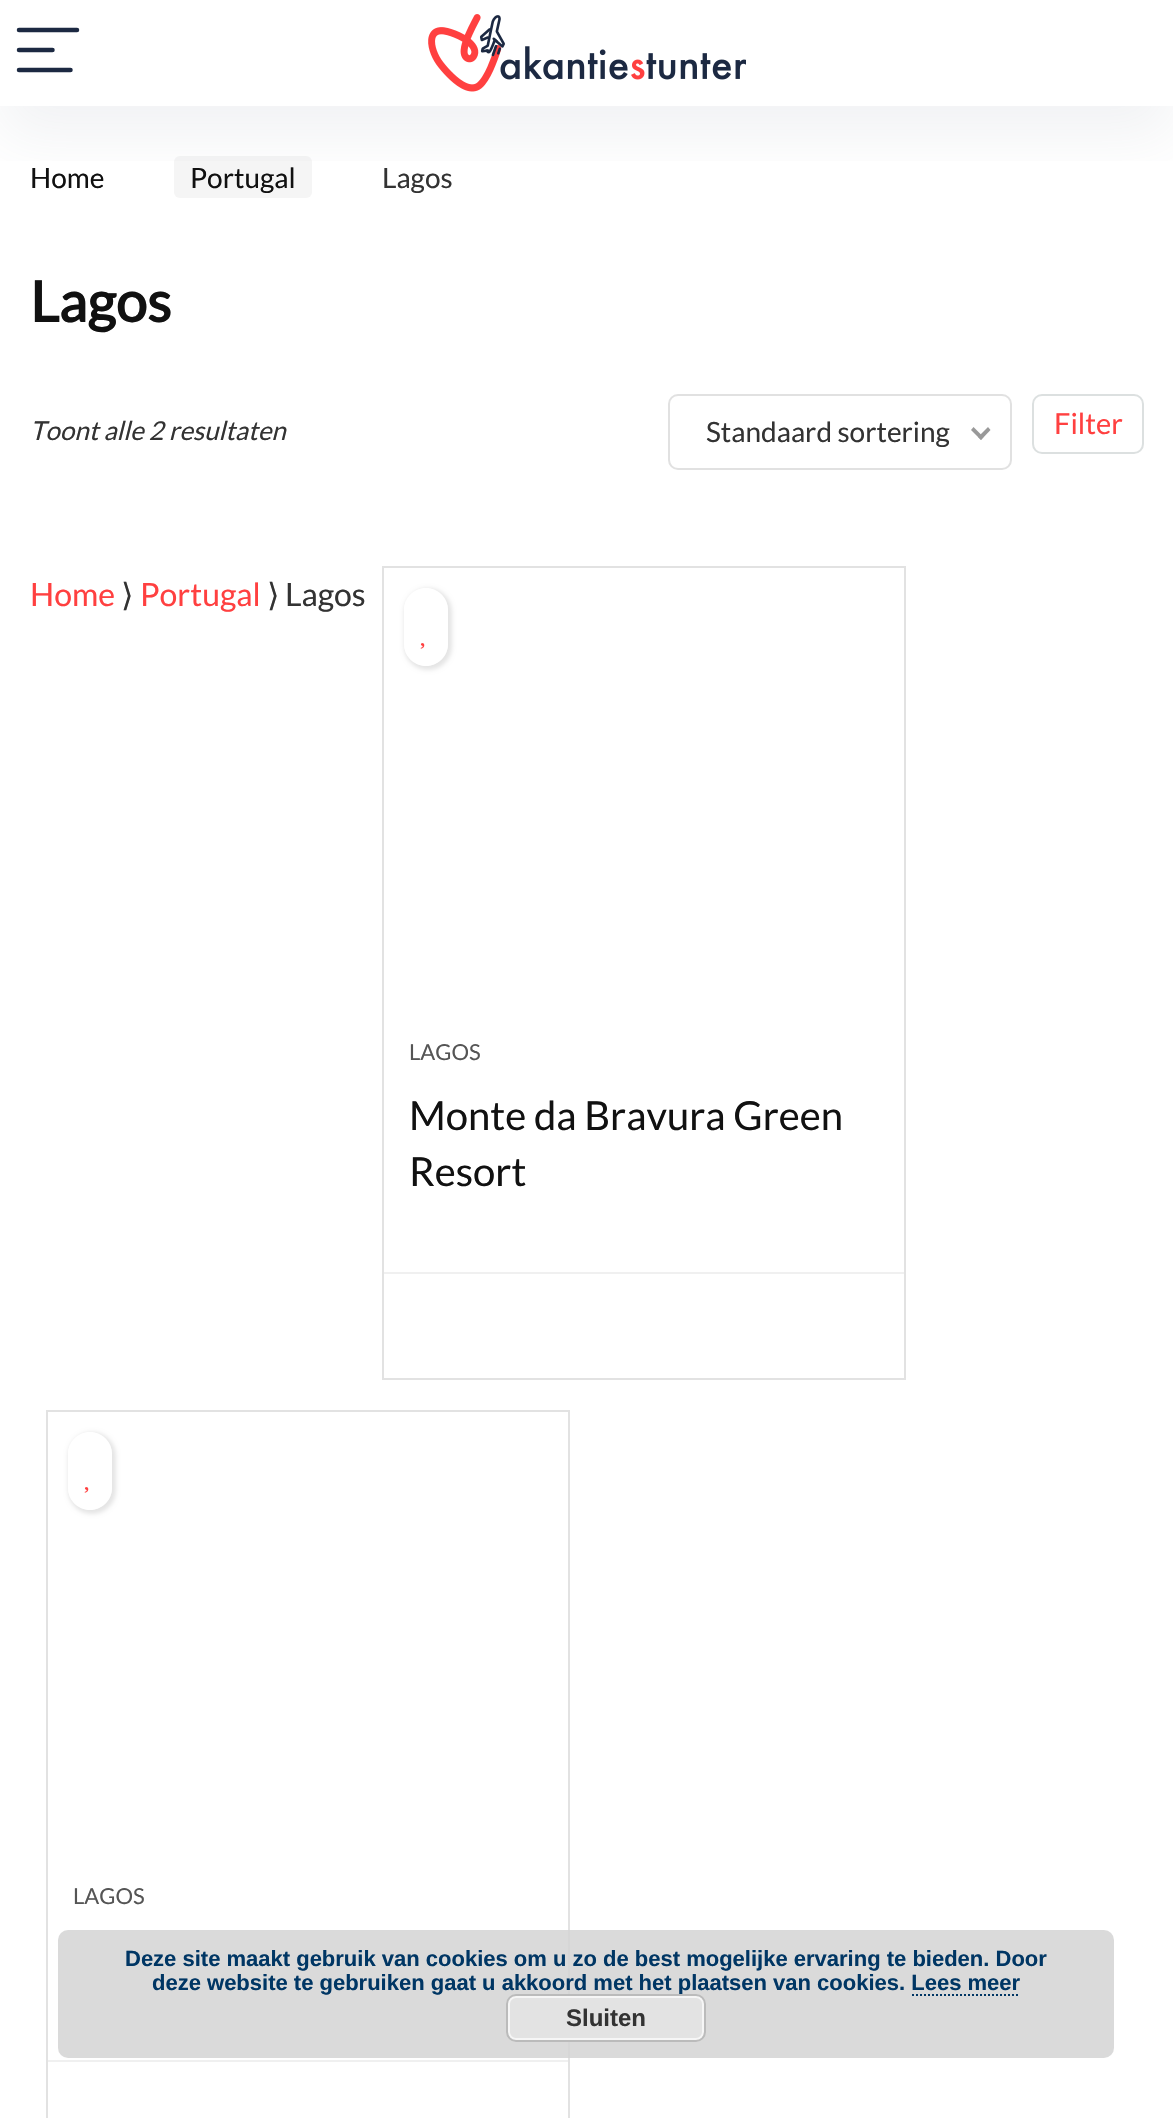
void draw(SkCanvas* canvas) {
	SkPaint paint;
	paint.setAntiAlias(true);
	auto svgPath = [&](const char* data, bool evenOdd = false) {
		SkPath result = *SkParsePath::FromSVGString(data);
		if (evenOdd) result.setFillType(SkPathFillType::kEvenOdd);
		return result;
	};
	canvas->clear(0xffffffff);
	paint.setColor(0xfff5f5f5);
	canvas->drawRoundRect(SkRect::MakeXYWH(174, 156, 138, 42), 6, 6, paint);
	canvas->save();
	canvas->clipRect(SkRect::MakeXYWH(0, 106, 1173, 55));
	paint.setColor(0x1a777b92);
	paint.setMaskFilter(SkMaskFilter::MakeBlur(kNormal_SkBlurStyle, 30));
	canvas->drawRect(SkRect::MakeXYWH(0, 30, 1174, 106), paint);
	paint.setMaskFilter(nullptr);
	canvas->restore();
	paint.setStroke(true);
	paint.setStrokeWidth(4.5);
	paint.setStrokeCap(SkPaint::kRound_Cap);
	paint.setColor(0xff1c2942);
	canvas->drawPath(svgPath("M19 30H77"), paint);
	canvas->drawPath(svgPath("M19 50H52.5M19 70H70.5"), paint);
	canvas->drawImageRect(SkImages::DeferredFromEncodedData(SkData::MakeFromFileName("img1.png")), SkRect::MakeXYWH(428, 14, 318, 78), SkSamplingOptions());
	SkFont f1(fontMgr->matchFamilyStyle("Lato", SkFontStyle::Normal()), 28);
	f1.setSubpixel(true);
	paint.setStroke(false);
	paint.setColor(0xff111111);
	canvas->drawString("Home", 30, 188, f1, paint);
	canvas->drawString("Portugal", 190, 188, f1, paint);
	paint.setColor(0xff333333);
	canvas->drawString("Lagos", 382, 188, f1, paint);
	SkFont f2(fontMgr->matchFamilyStyle("Lato", SkFontStyle::Bold()), 56);
	f2.setSubpixel(true);
	paint.setColor(0xff111111);
	canvas->drawString("Lagos", 30, 322, f2, paint);
	SkFont f3(fontMgr->matchFamilyStyle("Lato", SkFontStyle::Italic()), 26);
	f3.setSubpixel(true);
	paint.setColor(0xff333333);
	canvas->drawString("Toont alle 2 resultaten", 30, 440, f3, paint);
	paint.setStroke(true);
	paint.setStrokeWidth(2);
	paint.setStrokeCap(SkPaint::kButt_Cap);
	paint.setColor(0xffe1e1e1);
	canvas->drawRoundRect(SkRect::MakeXYWH(669, 395, 342, 74), 9, 9, paint);
	paint.setStroke(false);
	paint.setColor(0xff333333);
	canvas->drawString("Standaard sortering", 706, 442, f1, paint);
	paint.setColor(0xff999999);
	canvas->drawPath(svgPath("M988 427L990.5 430L981 440L978 437Z"), paint);
	canvas->drawPath(svgPath("M973.5 427L983.5 437L981 440L971 430Z"), paint);
	paint.setStroke(true);
	paint.setColor(0xffdce0e0);
	canvas->drawRoundRect(SkRect::MakeXYWH(1033, 395, 110, 58), 9, 9, paint);
	SkFont f4(fontMgr->matchFamilyStyle("Lato", SkFontStyle::Normal()), 29);
	f4.setSubpixel(true);
	paint.setStroke(false);
	paint.setColor(0xffff4040);
	canvas->drawString("Filter", 1054, 434, f4, paint);
	SkFont f5(fontMgr->matchFamilyStyle("Lato", SkFontStyle::Normal()), 32);
	f5.setSubpixel(true);
	canvas->drawString("Home", 30, 606, f5, paint);
	SkFont f6(fontMgr->matchFamilyStyle("DejaVu Sans", SkFontStyle::Normal()), 32);
	f6.setSubpixel(true);
	paint.setColor(0xff333333);
	canvas->drawString("⟩", 121, 606, f6, paint);
	paint.setColor(0xffff4040);
	canvas->drawString("Portugal", 140, 606, f5, paint);
	paint.setColor(0xff333333);
	canvas->drawString("⟩", 267, 606, f6, paint);
	canvas->drawString("Lagos", 285, 606, f5, paint);
	paint.setStroke(true);
	paint.setColor(0xffe2e2e2);
	canvas->drawRect(SkRect::MakeXYWH(383, 567, 522, 812), paint);
	canvas->save();
	canvas->clipPath(svgPath("M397 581H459V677H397ZM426 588C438 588 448 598 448 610V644C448 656 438 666 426 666C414 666 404 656 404 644V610C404 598 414 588 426 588Z", true), true);
	paint.setStroke(false);
	paint.setColor(0x1a000000);
	paint.setMaskFilter(SkMaskFilter::MakeBlur(kNormal_SkBlurStyle, 2));
	canvas->drawRoundRect(SkRect::MakeXYWH(404, 588, 48, 82), 24, 24, paint);
	paint.setMaskFilter(nullptr);
	canvas->restore();
	paint.setColor(0xc7ffffff);
	canvas->drawRoundRect(SkRect::MakeXYWH(404, 588, 44, 78), 22, 22, paint);
	canvas->drawImageRect(SkImages::DeferredFromEncodedData(SkData::MakeFromFileName("img2.png")), SkRect::MakeXYWH(420, 643, 5, 6), SkSamplingOptions());
	SkFont f7(fontMgr->matchFamilyStyle("Lato", SkFontStyle::Normal()), 22);
	f7.setSubpixel(true);
	paint.setColor(0xff555555);
	canvas->drawString("LAGOS", 409, 1060, f7, paint);
	SkFont f8(fontMgr->matchFamilyStyle("Lato", SkFontStyle::Normal()), 40);
	f8.setSubpixel(true);
	paint.setColor(0xff111111);
	canvas->drawString("Monte da Bravura Green", 409, 1130, f8, paint);
	canvas->drawString("Resort", 409, 1186, f8, paint);
	paint.setColor(0xfff0f0f0);
	canvas->drawRect(SkRect::MakeXYWH(384, 1272, 520, 2), paint);
	paint.setStroke(true);
	paint.setColor(0xffe2e2e2);
	canvas->drawRect(SkRect::MakeXYWH(47, 1411, 522, 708), paint);
	canvas->save();
	canvas->clipPath(svgPath("M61 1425H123V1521H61ZM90 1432C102 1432 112 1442 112 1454V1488C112 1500 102 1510 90 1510C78 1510 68 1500 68 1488V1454C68 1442 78 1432 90 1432Z", true), true);
	paint.setStroke(false);
	paint.setColor(0x1a000000);
	paint.setMaskFilter(SkMaskFilter::MakeBlur(kNormal_SkBlurStyle, 2));
	canvas->drawRoundRect(SkRect::MakeXYWH(68, 1432, 48, 82), 24, 24, paint);
	paint.setMaskFilter(nullptr);
	canvas->restore();
	paint.setColor(0xc7ffffff);
	canvas->drawRoundRect(SkRect::MakeXYWH(68, 1432, 44, 78), 22, 22, paint);
	canvas->drawImageRect(SkImages::DeferredFromEncodedData(SkData::MakeFromFileName("img2.png")), SkRect::MakeXYWH(84, 1487, 5, 6), SkSamplingOptions());
	paint.setColor(0xff555555);
	canvas->drawString("LAGOS", 73, 1904, f7, paint);
	paint.setColor(0xfff0f0f0);
	canvas->drawRect(SkRect::MakeXYWH(48, 2060, 520, 2), paint);
	paint.setColor(0xd9d3d3d3);
	canvas->drawRoundRect(SkRect::MakeXYWH(58, 1930, 1056, 128), 10, 10, paint);
	SkFont f9(fontMgr->matchFamilyStyle("Liberation Sans", SkFontStyle::Bold()), 22);
	f9.setSubpixel(true);
	paint.setColor(0xff003664);
	canvas->drawString("Deze site maakt gebruik van cookies om u zo de best mogelijke ervaring te bieden. Door", 125, 1966, f9, paint);
	canvas->drawString("deze website te gebruiken gaat u akkoord met het plaatsen van cookies. Lees meer", 152, 1990, f9, paint);
	paint.setStroke(true);
	paint.setPathEffect(SkDashPathEffect::Make({{2, 2}}, 0));
	canvas->drawPath(svgPath("M912 1995H1020"), paint);
	paint.setPathEffect(nullptr);
	paint.setStroke(false);
	paint.setColor(0xffe3e3e3);
	canvas->drawRoundRect(SkRect::MakeXYWH(506, 1994, 200, 48), 10, 10, paint);
	paint.setStroke(true);
	paint.setColor(0xfff6f6f6);
	canvas->drawRoundRect(SkRect::MakeXYWH(509, 1997, 194, 42), 7, 7, paint);
	paint.setColor(0xffbbbbbb);
	canvas->drawRoundRect(SkRect::MakeXYWH(507, 1995, 198, 46), 9, 9, paint);
	SkFont f10(fontMgr->matchFamilyStyle("Liberation Sans", SkFontStyle::Bold()), 24);
	f10.setSubpixel(true);
	paint.setStroke(false);
	paint.setColor(0xff333333);
	canvas->drawString("Sluiten", 566, 2026, f10, paint);
}
